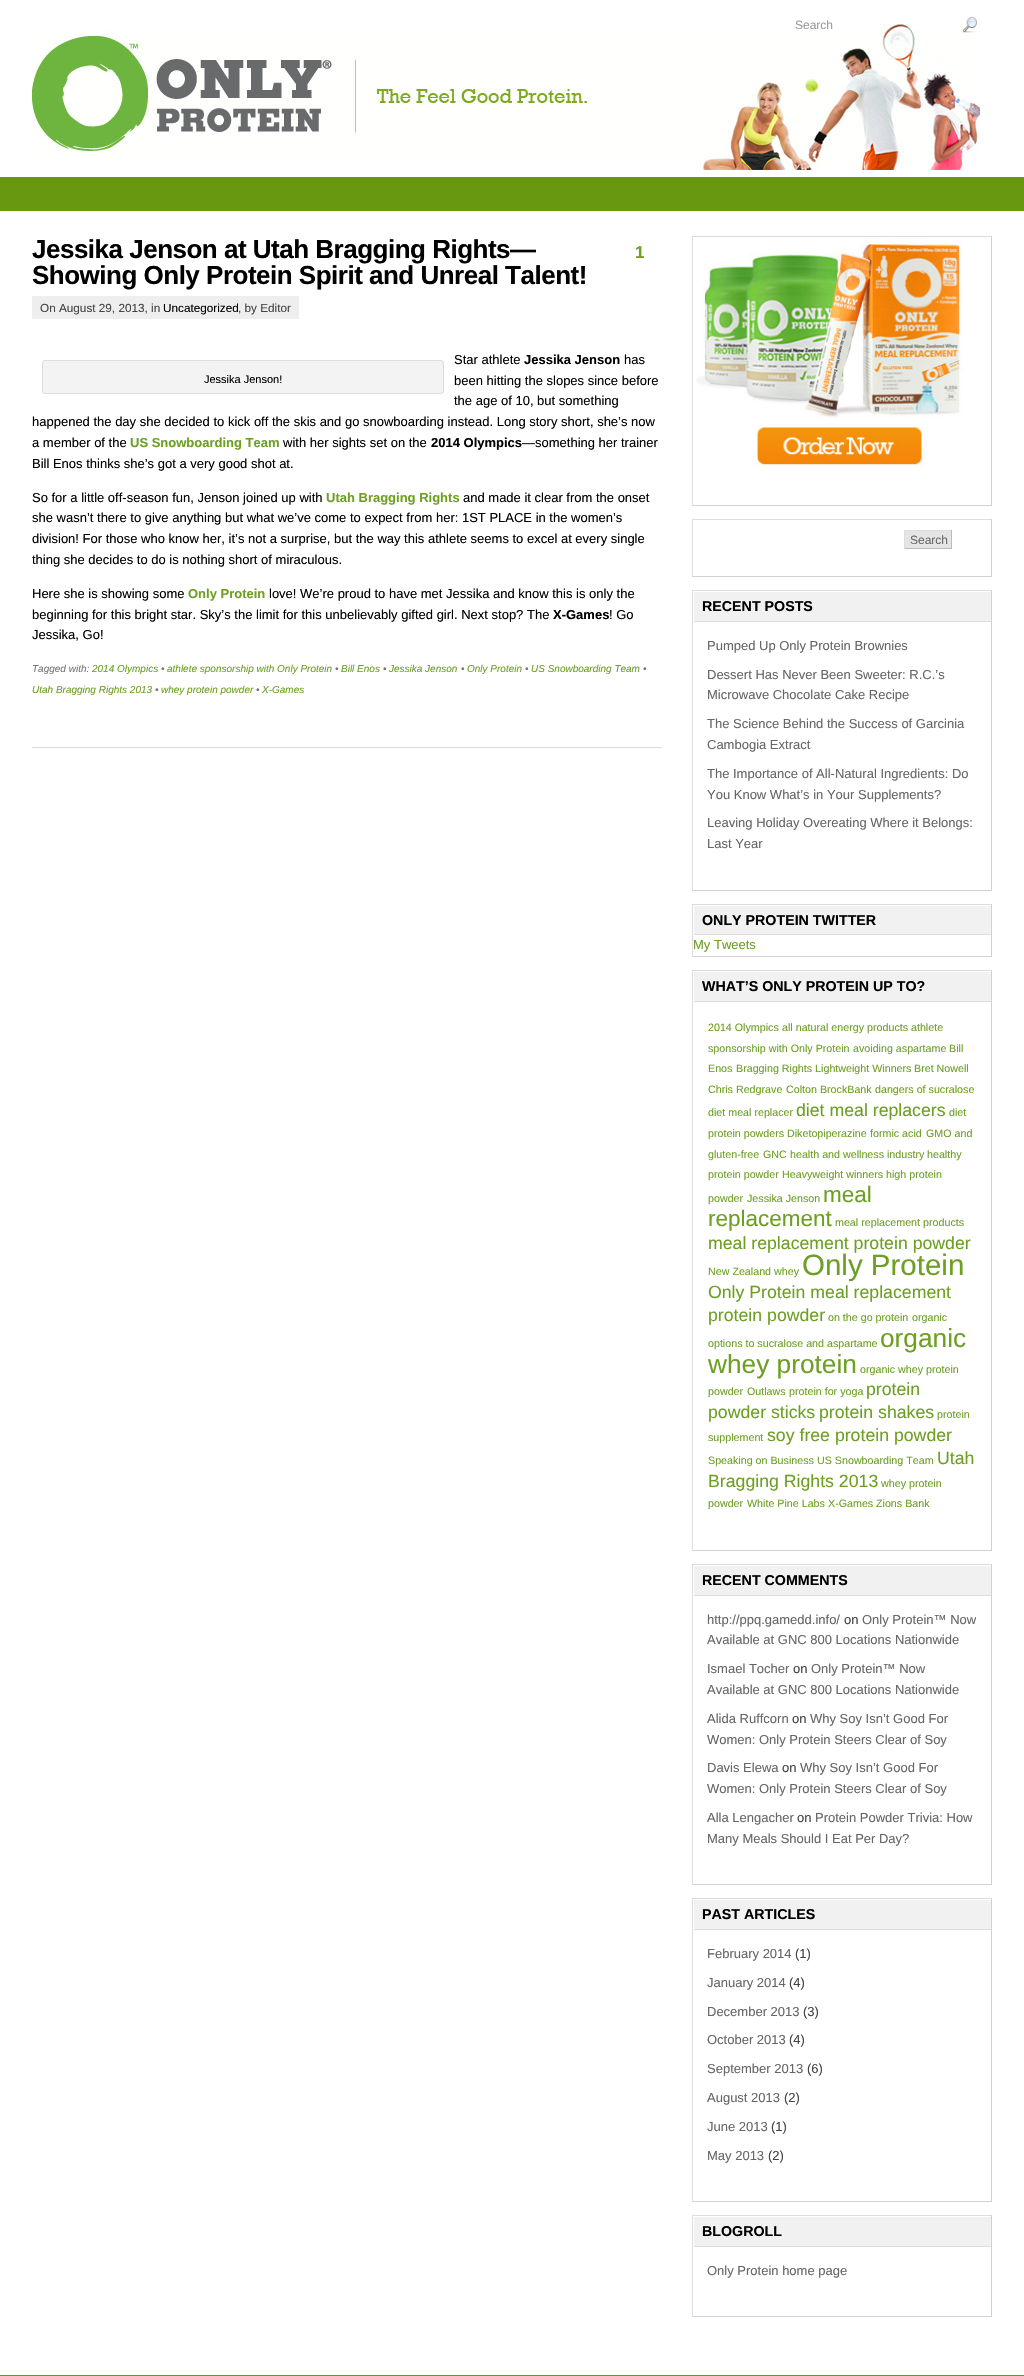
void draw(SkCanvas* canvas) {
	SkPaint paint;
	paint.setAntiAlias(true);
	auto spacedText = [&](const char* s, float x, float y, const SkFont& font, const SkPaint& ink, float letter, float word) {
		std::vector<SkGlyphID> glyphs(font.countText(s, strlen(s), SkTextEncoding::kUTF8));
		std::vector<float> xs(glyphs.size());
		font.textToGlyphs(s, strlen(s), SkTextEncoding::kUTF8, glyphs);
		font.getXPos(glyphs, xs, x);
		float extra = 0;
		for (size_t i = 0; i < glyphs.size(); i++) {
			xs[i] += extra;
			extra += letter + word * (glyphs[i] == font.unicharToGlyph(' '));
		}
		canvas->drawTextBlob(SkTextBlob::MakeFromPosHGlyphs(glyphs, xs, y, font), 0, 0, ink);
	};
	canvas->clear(0xff679810);
	paint.setColor(0xffffffff);
	canvas->drawRect(SkRect::MakeXYWH(0, 0, 1024, 177), paint);
	canvas->drawImageRect(SkImages::DeferredFromEncodedData(SkData::MakeFromFileName("img2.png")), SkRect::MakeXYWH(32, 23, 948, 147), SkSamplingOptions());
	SkFont f1(fontMgr->matchFamilyStyle("Liberation Sans", SkFontStyle::Normal()), 12);
	f1.setSubpixel(true);
	paint.setColor(0xff999999);
	canvas->drawString("Search", 795, 29, f1, paint);
	canvas->drawImageRect(SkImages::DeferredFromEncodedData(SkData::MakeFromFileName("img1.png")), SkRect::MakeXYWH(962, 17, 15, 16), SkSamplingOptions());
	paint.setColor(0xffffffff);
	canvas->drawRect(SkRect::MakeXYWH(0, 211, 1024, 2164), paint);
	paint.setColor(0xffdfddd5);
	canvas->drawRect(SkRect::MakeXYWH(32, 747, 630, 1), paint);
	SkFont f2(fontMgr->matchFamilyStyle("Liberation Sans", SkFontStyle::Bold()), 26);
	f2.setSubpixel(true);
	paint.setColor(0xff000000);
	spacedText("Jessika Jenson at Utah Bragging Rights—", 32, 258, f2, paint, -0.5, 0);
	spacedText("Showing Only Protein Spirit and Unreal Talent!", 32, 284, f2, paint, -0.5, 0);
	paint.setColor(0xffeeeeee);
	canvas->drawRect(SkRect::MakeXYWH(32, 296, 267, 23), paint);
	SkFont f3(fontMgr->matchFamilyStyle("Liberation Sans", SkFontStyle::Normal()), 11.75);
	f3.setSubpixel(true);
	paint.setColor(0xff444444);
	canvas->drawString("On August 29, 2013, in", 40, 312, f3, paint);
	paint.setColor(0xff000000);
	canvas->drawString("Uncategorized", 163, 312, f3, paint);
	paint.setColor(0xff444444);
	canvas->drawString(", by Editor", 238, 312, f3, paint);
	SkFont f4(fontMgr->matchFamilyStyle("Liberation Sans", SkFontStyle::Bold()), 17);
	f4.setSubpixel(true);
	paint.setColor(0xff6d9f23);
	canvas->drawString("1", 635, 258, f4, paint);
	SkFont f5(fontMgr->matchFamilyStyle("Liberation Sans", SkFontStyle::Normal()), 13);
	f5.setSubpixel(true);
	paint.setColor(0xff000000);
	canvas->drawString("Star athlete", 454, 364, f5, paint);
	SkFont f6(fontMgr->matchFamilyStyle("Liberation Sans", SkFontStyle::Bold()), 13);
	f6.setSubpixel(true);
	canvas->drawString("Jessika Jenson", 524, 364, f6, paint);
	canvas->drawString("has", 624, 364, f5, paint);
	canvas->drawString("been hitting the slopes since before", 454, 385, f5, paint);
	canvas->drawString("the age of 10, but something", 454, 405, f5, paint);
	canvas->drawString("happened the day she decided to kick off the skis and go snowboarding instead. Long story short, she’s now", 32, 426, f5, paint);
	canvas->drawString("a member of the", 32, 447, f5, paint);
	paint.setColor(0xff6d9f23);
	canvas->drawString("US Snowboarding Team", 130, 447, f6, paint);
	paint.setColor(0xff000000);
	canvas->drawString("with her sights set on the", 283, 447, f5, paint);
	canvas->drawString("2014 Olympics", 431, 447, f6, paint);
	canvas->drawString("—something her trainer", 522, 447, f5, paint);
	canvas->drawString("Bill Enos thinks she’s got a very good shot at.", 32, 468, f5, paint);
	paint.setColor(0xfff3f3f3);
	canvas->drawRoundRect(SkRect::MakeXYWH(42.5, 360.5, 401, 33), 2.5, 2.5, paint);
	paint.setStroke(true);
	paint.setStrokeWidth(1);
	paint.setColor(0xffdddddd);
	canvas->drawRoundRect(SkRect::MakeXYWH(42.5, 360.5, 401, 33), 2.5, 2.5, paint);
	SkFont f7(fontMgr->matchFamilyStyle("Liberation Sans", SkFontStyle::Normal()), 11);
	f7.setSubpixel(true);
	paint.setStroke(false);
	paint.setColor(0xff000000);
	canvas->drawString("Jessika Jenson!", 204, 383, f7, paint);
	canvas->drawString("So for a little off-season fun, Jenson joined up with", 32, 502, f5, paint);
	paint.setColor(0xff6d9f23);
	canvas->drawString("Utah Bragging Rights", 326, 502, f6, paint);
	paint.setColor(0xff000000);
	canvas->drawString("and made it clear from the onset", 463, 502, f5, paint);
	canvas->drawString("she wasn’t there to give anything but what we’ve come to expect from her: 1ST PLACE in the women’s", 32, 522, f5, paint);
	canvas->drawString("division! For those who know her, it’s not a surprise, but the way this athlete seems to excel at every single", 32, 543, f5, paint);
	canvas->drawString("thing she decides to do is nothing short of miraculous.", 32, 564, f5, paint);
	canvas->drawString("Here she is showing some", 32, 598, f5, paint);
	paint.setColor(0xff6d9f23);
	canvas->drawString("Only Protein", 188, 598, f6, paint);
	paint.setColor(0xff000000);
	canvas->drawString("love! We’re proud to have met Jessika and know this is only the", 269, 598, f5, paint);
	canvas->drawString("beginning for this bright star. Sky’s the limit for this unbelievably gifted girl. Next stop? The", 32, 619, f5, paint);
	canvas->drawString("X-Games", 553, 619, f6, paint);
	canvas->drawString("! Go", 609, 619, f5, paint);
	canvas->drawString("Jessika, Go!", 32, 639, f5, paint);
	SkFont f8(fontMgr->matchFamilyStyle("Liberation Sans", SkFontStyle::Italic()), 10);
	f8.setSubpixel(true);
	paint.setColor(0xff777777);
	canvas->drawString("Tagged with:", 32, 672, f8, paint);
	paint.setColor(0xff6d9f23);
	canvas->drawString("2014 Olympics", 92, 672, f8, paint);
	paint.setColor(0xff777777);
	canvas->drawString("•", 161, 672, f8, paint);
	paint.setColor(0xff6d9f23);
	canvas->drawString("athlete sponsorship with Only Protein", 167, 672, f8, paint);
	paint.setColor(0xff777777);
	canvas->drawString("•", 335, 672, f8, paint);
	paint.setColor(0xff6d9f23);
	canvas->drawString("Bill Enos", 341, 672, f8, paint);
	paint.setColor(0xff777777);
	canvas->drawString("•", 383, 672, f8, paint);
	paint.setColor(0xff6d9f23);
	canvas->drawString("Jessika Jenson", 389, 672, f8, paint);
	paint.setColor(0xff777777);
	canvas->drawString("•", 461, 672, f8, paint);
	paint.setColor(0xff6d9f23);
	canvas->drawString("Only Protein", 467, 672, f8, paint);
	paint.setColor(0xff777777);
	canvas->drawString("•", 525, 672, f8, paint);
	paint.setColor(0xff6d9f23);
	canvas->drawString("US Snowboarding Team", 531, 672, f8, paint);
	paint.setColor(0xff777777);
	canvas->drawString("•", 643, 672, f8, paint);
	paint.setColor(0xff6d9f23);
	canvas->drawString("Utah Bragging Rights 2013", 32, 693, f8, paint);
	paint.setColor(0xff777777);
	canvas->drawString("•", 155, 693, f8, paint);
	paint.setColor(0xff6d9f23);
	canvas->drawString("whey protein powder", 161, 693, f8, paint);
	paint.setColor(0xff777777);
	canvas->drawString("•", 256, 693, f8, paint);
	paint.setColor(0xff6d9f23);
	canvas->drawString("X-Games", 262, 693, f8, paint);
	paint.setColor(0xffdddddd);
	canvas->drawRect(SkRect::MakeXYWH(692, 236, 300, 1), paint);
	paint.setColor(0xffd1d1d1);
	canvas->drawRect(SkRect::MakeXYWH(991, 236, 1, 270), paint);
	canvas->drawRect(SkRect::MakeXYWH(692, 505, 300, 1), paint);
	paint.setColor(0xffdddddd);
	canvas->drawRect(SkRect::MakeXYWH(692, 236, 1, 270), paint);
	canvas->drawImageRect(SkImages::DeferredFromEncodedData(SkData::MakeFromFileName("img3.png")), SkRect::MakeXYWH(696, 238, 267, 229), SkSamplingOptions());
	canvas->drawRect(SkRect::MakeXYWH(692, 519, 300, 1), paint);
	paint.setColor(0xffd1d1d1);
	canvas->drawRect(SkRect::MakeXYWH(991, 519, 1, 58), paint);
	canvas->drawRect(SkRect::MakeXYWH(692, 576, 300, 1), paint);
	paint.setColor(0xffdddddd);
	canvas->drawRect(SkRect::MakeXYWH(692, 519, 1, 58), paint);
	paint.setColor(0xffe5e5e5);
	canvas->drawRect(SkRect::MakeXYWH(905, 531, 46, 17), paint);
	paint.setColor(0xffdedede);
	canvas->drawRect(SkRect::MakeXYWH(904, 530, 48, 1), paint);
	paint.setColor(0xffbbbbbb);
	canvas->drawRect(SkRect::MakeXYWH(951, 530, 1, 19), paint);
	canvas->drawRect(SkRect::MakeXYWH(904, 548, 48, 1), paint);
	paint.setColor(0xffdedede);
	canvas->drawRect(SkRect::MakeXYWH(904, 530, 1, 19), paint);
	paint.setColor(0xff666666);
	canvas->drawString("Search", 910, 544, f1, paint);
	paint.setColor(0xffdddddd);
	canvas->drawRect(SkRect::MakeXYWH(692, 590, 300, 1), paint);
	paint.setColor(0xffd1d1d1);
	canvas->drawRect(SkRect::MakeXYWH(991, 590, 1, 301), paint);
	canvas->drawRect(SkRect::MakeXYWH(692, 890, 300, 1), paint);
	paint.setColor(0xffdddddd);
	canvas->drawRect(SkRect::MakeXYWH(692, 590, 1, 301), paint);
	paint.setColor(0xfff1f1f1);
	canvas->drawRect(SkRect::MakeXYWH(694, 592, 297, 29), paint);
	paint.setColor(0xffdddddd);
	canvas->drawRect(SkRect::MakeXYWH(693, 621, 298, 1), paint);
	paint.setColor(0xffffffff);
	canvas->drawRect(SkRect::MakeXYWH(693, 621, 1, 1), paint);
	SkFont f9(fontMgr->matchFamilyStyle("Liberation Sans", SkFontStyle::Bold()), 14.25);
	f9.setSubpixel(true);
	paint.setColor(0xff000000);
	canvas->drawString("RECENT POSTS", 702, 611, f9, paint);
	paint.setColor(0xff666666);
	canvas->drawString("Pumped Up Only Protein Brownies", 707, 650, f5, paint);
	canvas->drawString("Dessert Has Never Been Sweeter: R.C.’s", 707, 679, f5, paint);
	canvas->drawString("Microwave Chocolate Cake Recipe", 707, 699, f5, paint);
	canvas->drawString("The Science Behind the Success of Garcinia", 707, 728, f5, paint);
	canvas->drawString("Cambogia Extract", 707, 749, f5, paint);
	canvas->drawString("The Importance of All-Natural Ingredients: Do", 707, 778, f5, paint);
	canvas->drawString("You Know What’s in Your Supplements?", 707, 799, f5, paint);
	canvas->drawString("Leaving Holiday Overeating Where it Belongs:", 707, 827, f5, paint);
	canvas->drawString("Last Year", 707, 848, f5, paint);
	paint.setColor(0xffdddddd);
	canvas->drawRect(SkRect::MakeXYWH(692, 904, 300, 1), paint);
	paint.setColor(0xffd1d1d1);
	canvas->drawRect(SkRect::MakeXYWH(991, 904, 1, 53), paint);
	canvas->drawRect(SkRect::MakeXYWH(692, 956, 300, 1), paint);
	paint.setColor(0xffdddddd);
	canvas->drawRect(SkRect::MakeXYWH(692, 904, 1, 53), paint);
	paint.setColor(0xfff1f1f1);
	canvas->drawRect(SkRect::MakeXYWH(694, 906, 297, 28), paint);
	paint.setColor(0xffdddddd);
	canvas->drawRect(SkRect::MakeXYWH(693, 934, 298, 1), paint);
	paint.setColor(0xffffffff);
	canvas->drawRect(SkRect::MakeXYWH(693, 934, 1, 1), paint);
	paint.setColor(0xff000000);
	canvas->drawString("ONLY PROTEIN TWITTER", 702, 925, f9, paint);
	paint.setColor(0xff6d9f23);
	canvas->drawString("My Tweets", 693, 949, f5, paint);
	paint.setColor(0xffdddddd);
	canvas->drawRect(SkRect::MakeXYWH(692, 970, 300, 1), paint);
	paint.setColor(0xffd1d1d1);
	canvas->drawRect(SkRect::MakeXYWH(991, 970, 1, 581), paint);
	canvas->drawRect(SkRect::MakeXYWH(692, 1550, 300, 1), paint);
	paint.setColor(0xffdddddd);
	canvas->drawRect(SkRect::MakeXYWH(692, 970, 1, 581), paint);
	paint.setColor(0xfff1f1f1);
	canvas->drawRect(SkRect::MakeXYWH(694, 972, 297, 29), paint);
	paint.setColor(0xffdddddd);
	canvas->drawRect(SkRect::MakeXYWH(693, 1001, 298, 1), paint);
	paint.setColor(0xffffffff);
	canvas->drawRect(SkRect::MakeXYWH(693, 1001, 1, 1), paint);
	paint.setColor(0xff000000);
	canvas->drawString("WHAT’S ONLY PROTEIN UP TO?", 702, 991, f9, paint);
	SkFont f10(fontMgr->matchFamilyStyle("Liberation Sans", SkFontStyle::Normal()), 10.7);
	f10.setSubpixel(true);
	paint.setColor(0xff6d9f23);
	canvas->drawString("2014 Olympics", 708, 1031, f10, paint);
	canvas->drawString("all natural energy products", 782, 1031, f10, paint);
	canvas->drawString("athlete", 911, 1031, f10, paint);
	canvas->drawString("sponsorship with Only Protein", 708, 1052, f10, paint);
	canvas->drawString("avoiding aspartame", 853, 1052, f10, paint);
	canvas->drawString("Bill", 949, 1052, f10, paint);
	canvas->drawString("Enos", 708, 1072, f10, paint);
	canvas->drawString("Bragging Rights Lightweight Winners", 736, 1072, f10, paint);
	canvas->drawString("Bret Nowell", 914, 1072, f10, paint);
	canvas->drawString("Chris Redgrave", 708, 1093, f10, paint);
	canvas->drawString("Colton BrockBank", 786, 1093, f10, paint);
	canvas->drawString("dangers of sucralose", 875, 1093, f10, paint);
	canvas->drawString("diet meal replacer", 708, 1116, f10, paint);
	SkFont f11(fontMgr->matchFamilyStyle("Liberation Sans", SkFontStyle::Normal()), 17.7);
	f11.setSubpixel(true);
	canvas->drawString("diet meal replacers", 796, 1116, f11, paint);
	canvas->drawString("diet", 949, 1116, f10, paint);
	canvas->drawString("protein powders", 708, 1137, f10, paint);
	canvas->drawString("Diketopiperazine", 787, 1137, f10, paint);
	canvas->drawString("formic acid", 870, 1137, f10, paint);
	canvas->drawString("GMO and", 926, 1137, f10, paint);
	canvas->drawString("gluten-free", 708, 1158, f10, paint);
	canvas->drawString("GNC", 763, 1158, f10, paint);
	canvas->drawString("health and wellness industry", 790, 1158, f10, paint);
	canvas->drawString("healthy", 927, 1158, f10, paint);
	canvas->drawString("protein powder", 708, 1178, f10, paint);
	canvas->drawString("Heavyweight winners", 782, 1178, f10, paint);
	canvas->drawString("high protein", 886, 1178, f10, paint);
	canvas->drawString("powder", 708, 1202, f10, paint);
	canvas->drawString("Jessika Jenson", 747, 1202, f10, paint);
	SkFont f12(fontMgr->matchFamilyStyle("Liberation Sans", SkFontStyle::Normal()), 22.5);
	f12.setSubpixel(true);
	canvas->drawString("meal", 823, 1202, f12, paint);
	canvas->drawString("replacement", 708, 1226, f12, paint);
	canvas->drawString("meal replacement products", 835, 1226, f10, paint);
	canvas->drawString("meal replacement protein powder", 708, 1249, f11, paint);
	canvas->drawString("New Zealand whey", 708, 1275, f10, paint);
	SkFont f13(fontMgr->matchFamilyStyle("Liberation Sans", SkFontStyle::Normal()), 29.5);
	f13.setSubpixel(true);
	canvas->drawString("Only Protein", 802, 1275, f13, paint);
	canvas->drawString("Only Protein meal replacement", 708, 1298, f11, paint);
	canvas->drawString("protein powder", 708, 1321, f11, paint);
	canvas->drawString("on the go protein", 828, 1321, f10, paint);
	canvas->drawString("organic", 912, 1321, f10, paint);
	canvas->drawString("options to sucralose and aspartame", 708, 1347, f10, paint);
	SkFont f14(fontMgr->matchFamilyStyle("Liberation Sans", SkFontStyle::Normal()), 26.25);
	f14.setSubpixel(true);
	canvas->drawString("organic", 880, 1347, f14, paint);
	canvas->drawString("whey protein", 708, 1373, f14, paint);
	canvas->drawString("organic whey protein", 860, 1373, f10, paint);
	canvas->drawString("powder", 708, 1395, f10, paint);
	canvas->drawString("Outlaws", 747, 1395, f10, paint);
	canvas->drawString("protein for yoga", 789, 1395, f10, paint);
	canvas->drawString("protein", 866, 1395, f11, paint);
	canvas->drawString("powder sticks", 708, 1418, f11, paint);
	canvas->drawString("protein shakes", 819, 1418, f11, paint);
	canvas->drawString("protein", 937, 1418, f10, paint);
	canvas->drawString("supplement", 708, 1441, f10, paint);
	canvas->drawString("soy free protein powder", 767, 1441, f11, paint);
	canvas->drawString("Speaking on Business", 708, 1464, f10, paint);
	canvas->drawString("US Snowboarding Team", 817, 1464, f10, paint);
	canvas->drawString("Utah", 937, 1464, f11, paint);
	canvas->drawString("Bragging Rights 2013", 708, 1487, f11, paint);
	canvas->drawString("whey protein", 881, 1487, f10, paint);
	canvas->drawString("powder", 708, 1507, f10, paint);
	canvas->drawString("White Pine Labs", 747, 1507, f10, paint);
	canvas->drawString("X-Games", 828, 1507, f10, paint);
	canvas->drawString("Zions Bank", 876, 1507, f10, paint);
	paint.setColor(0xffdddddd);
	canvas->drawRect(SkRect::MakeXYWH(692, 1564, 300, 1), paint);
	paint.setColor(0xffd1d1d1);
	canvas->drawRect(SkRect::MakeXYWH(991, 1564, 1, 321), paint);
	canvas->drawRect(SkRect::MakeXYWH(692, 1884, 300, 1), paint);
	paint.setColor(0xffdddddd);
	canvas->drawRect(SkRect::MakeXYWH(692, 1564, 1, 321), paint);
	paint.setColor(0xfff1f1f1);
	canvas->drawRect(SkRect::MakeXYWH(694, 1566, 297, 29), paint);
	paint.setColor(0xffdddddd);
	canvas->drawRect(SkRect::MakeXYWH(693, 1595, 298, 1), paint);
	paint.setColor(0xffffffff);
	canvas->drawRect(SkRect::MakeXYWH(693, 1595, 1, 1), paint);
	paint.setColor(0xff000000);
	canvas->drawString("RECENT COMMENTS", 702, 1585, f9, paint);
	paint.setColor(0xff666666);
	canvas->drawString("http://ppq.gamedd.info/", 707, 1624, f5, paint);
	paint.setColor(0xff444444);
	canvas->drawString("on", 844, 1624, f5, paint);
	paint.setColor(0xff666666);
	canvas->drawString("Only Protein™ Now", 862, 1624, f5, paint);
	canvas->drawString("Available at GNC 800 Locations Nationwide", 707, 1644, f5, paint);
	canvas->drawString("Ismael Tocher", 707, 1673, f5, paint);
	paint.setColor(0xff444444);
	canvas->drawString("on", 793, 1673, f5, paint);
	paint.setColor(0xff666666);
	canvas->drawString("Only Protein™ Now", 811, 1673, f5, paint);
	canvas->drawString("Available at GNC 800 Locations Nationwide", 707, 1694, f5, paint);
	canvas->drawString("Alida Ruffcorn", 707, 1723, f5, paint);
	paint.setColor(0xff444444);
	canvas->drawString("on", 792, 1723, f5, paint);
	paint.setColor(0xff666666);
	canvas->drawString("Why Soy Isn’t Good For", 810, 1723, f5, paint);
	canvas->drawString("Women: Only Protein Steers Clear of Soy", 707, 1744, f5, paint);
	canvas->drawString("Davis Elewa", 707, 1772, f5, paint);
	paint.setColor(0xff444444);
	canvas->drawString("on", 782, 1772, f5, paint);
	paint.setColor(0xff666666);
	canvas->drawString("Why Soy Isn’t Good For", 800, 1772, f5, paint);
	canvas->drawString("Women: Only Protein Steers Clear of Soy", 707, 1793, f5, paint);
	canvas->drawString("Alla Lengacher", 707, 1822, f5, paint);
	paint.setColor(0xff444444);
	canvas->drawString("on", 797, 1822, f5, paint);
	paint.setColor(0xff666666);
	canvas->drawString("Protein Powder Trivia: How", 815, 1822, f5, paint);
	canvas->drawString("Many Meals Should I Eat Per Day?", 707, 1843, f5, paint);
	paint.setColor(0xffdddddd);
	canvas->drawRect(SkRect::MakeXYWH(692, 1898, 300, 1), paint);
	paint.setColor(0xffd1d1d1);
	canvas->drawRect(SkRect::MakeXYWH(991, 1898, 1, 304), paint);
	canvas->drawRect(SkRect::MakeXYWH(692, 2201, 300, 1), paint);
	paint.setColor(0xffdddddd);
	canvas->drawRect(SkRect::MakeXYWH(692, 1898, 1, 304), paint);
	paint.setColor(0xfff1f1f1);
	canvas->drawRect(SkRect::MakeXYWH(694, 1900, 297, 29), paint);
	paint.setColor(0xffdddddd);
	canvas->drawRect(SkRect::MakeXYWH(693, 1929, 298, 1), paint);
	paint.setColor(0xffffffff);
	canvas->drawRect(SkRect::MakeXYWH(693, 1929, 1, 1), paint);
	paint.setColor(0xff000000);
	canvas->drawString("PAST ARTICLES", 702, 1919, f9, paint);
	paint.setColor(0xff666666);
	canvas->drawString("February 2014", 707, 1958, f5, paint);
	paint.setColor(0xff444444);
	canvas->drawString("(1)", 795, 1958, f5, paint);
	paint.setColor(0xff666666);
	canvas->drawString("January 2014", 707, 1987, f5, paint);
	paint.setColor(0xff444444);
	canvas->drawString("(4)", 789, 1987, f5, paint);
	paint.setColor(0xff666666);
	canvas->drawString("December 2013", 707, 2016, f5, paint);
	paint.setColor(0xff444444);
	canvas->drawString("(3)", 803, 2016, f5, paint);
	paint.setColor(0xff666666);
	canvas->drawString("October 2013", 707, 2044, f5, paint);
	paint.setColor(0xff444444);
	canvas->drawString("(4)", 789, 2044, f5, paint);
	paint.setColor(0xff666666);
	canvas->drawString("September 2013", 707, 2073, f5, paint);
	paint.setColor(0xff444444);
	canvas->drawString("(6)", 807, 2073, f5, paint);
	paint.setColor(0xff666666);
	canvas->drawString("August 2013", 707, 2102, f5, paint);
	paint.setColor(0xff444444);
	canvas->drawString("(2)", 784, 2102, f5, paint);
	paint.setColor(0xff666666);
	canvas->drawString("June 2013", 707, 2131, f5, paint);
	paint.setColor(0xff444444);
	canvas->drawString("(1)", 771, 2131, f5, paint);
	paint.setColor(0xff666666);
	canvas->drawString("May 2013", 707, 2160, f5, paint);
	paint.setColor(0xff444444);
	canvas->drawString("(2)", 768, 2160, f5, paint);
	paint.setColor(0xffdddddd);
	canvas->drawRect(SkRect::MakeXYWH(692, 2215, 300, 1), paint);
	paint.setColor(0xffd1d1d1);
	canvas->drawRect(SkRect::MakeXYWH(991, 2215, 1, 102), paint);
	canvas->drawRect(SkRect::MakeXYWH(692, 2316, 300, 1), paint);
	paint.setColor(0xffdddddd);
	canvas->drawRect(SkRect::MakeXYWH(692, 2215, 1, 102), paint);
	paint.setColor(0xfff1f1f1);
	canvas->drawRect(SkRect::MakeXYWH(694, 2217, 297, 29), paint);
	paint.setColor(0xffdddddd);
	canvas->drawRect(SkRect::MakeXYWH(693, 2246, 298, 1), paint);
	paint.setColor(0xffffffff);
	canvas->drawRect(SkRect::MakeXYWH(693, 2246, 1, 1), paint);
	paint.setColor(0xff000000);
	canvas->drawString("BLOGROLL", 702, 2236, f9, paint);
	paint.setColor(0xff666666);
	canvas->drawString("Only Protein home page", 707, 2275, f5, paint);
}
